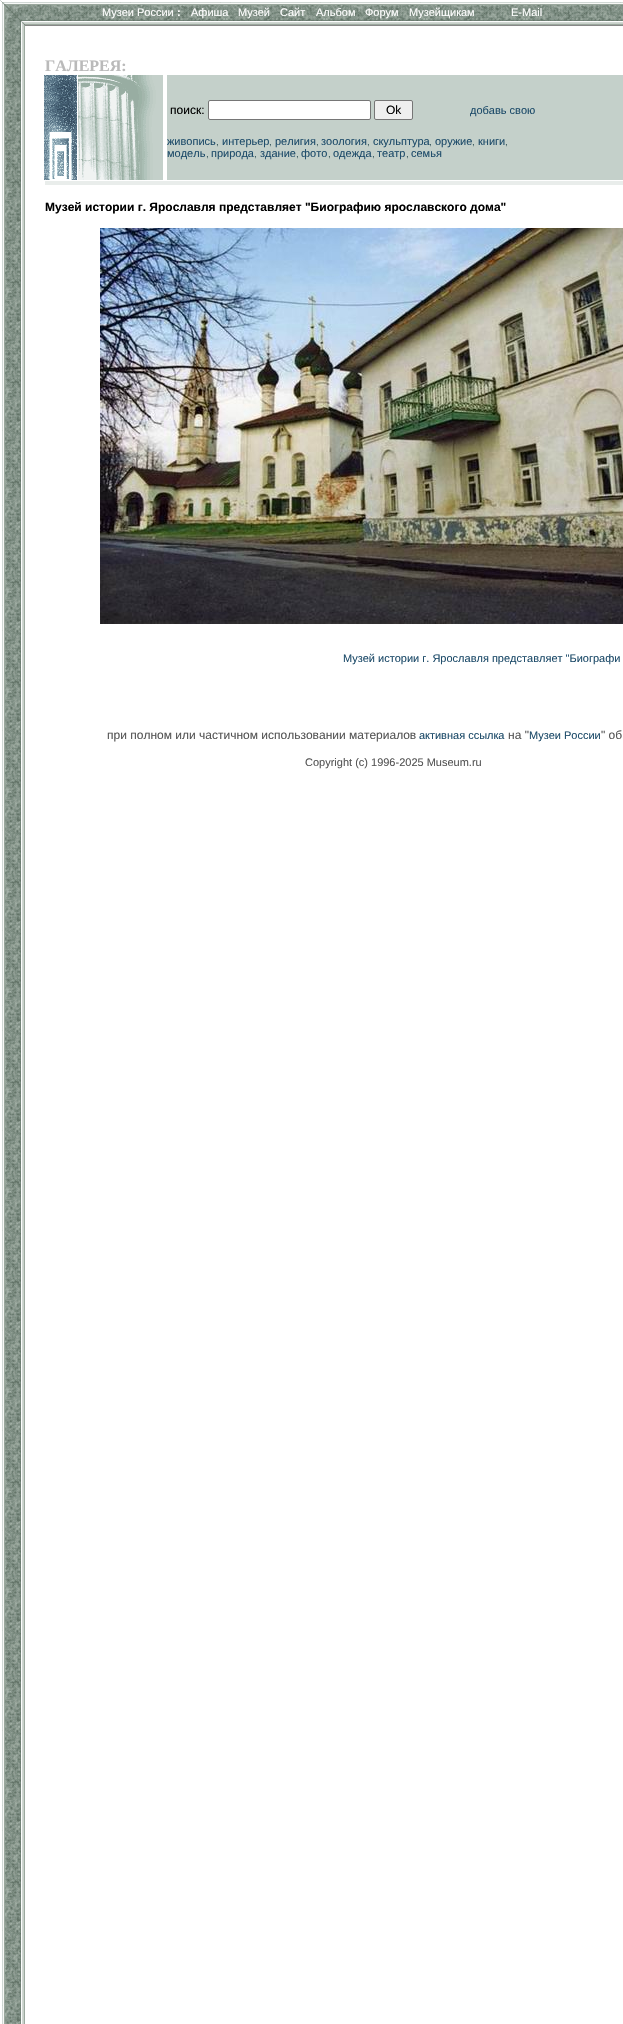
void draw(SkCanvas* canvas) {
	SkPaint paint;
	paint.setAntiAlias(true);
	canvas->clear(0xffffffff);
	canvas->drawImageRect(SkImages::DeferredFromEncodedData(SkData::MakeFromFileName("img1.png")), SkRect::MakeXYWH(2, 25, 23, 1999), SkSamplingOptions());
	canvas->drawImageRect(SkImages::DeferredFromEncodedData(SkData::MakeFromFileName("img2.png")), SkRect::MakeXYWH(0, 0, 25, 25), SkSamplingOptions());
	canvas->drawImageRect(SkImages::DeferredFromEncodedData(SkData::MakeFromFileName("img3.png")), SkRect::MakeXYWH(25, 0, 598, 25), SkSamplingOptions());
	SkFont f1(fontMgr->matchFamilyStyle("Liberation Sans", SkFontStyle::Normal()), 11);
	f1.setSubpixel(true);
	paint.setColor(0xffffffff);
	canvas->drawString("Музеи России", 102, 16, f1, paint);
	SkFont f2(fontMgr->matchFamilyStyle("Liberation Sans", SkFontStyle::Bold()), 11);
	f2.setSubpixel(true);
	canvas->drawString(":", 177, 16, f2, paint);
	canvas->drawString("Афиша", 191, 16, f1, paint);
	canvas->drawString("Музей", 238, 16, f1, paint);
	canvas->drawString("Сайт", 280, 16, f1, paint);
	canvas->drawString("Альбом", 316, 16, f1, paint);
	canvas->drawString("Форум", 365, 16, f1, paint);
	canvas->drawString("Музейщикам", 409, 16, f1, paint);
	canvas->drawString("E-Mail", 511, 16, f1, paint);
	paint.setColor(0xff888888);
	canvas->drawRect(SkRect::MakeXYWH(25, 25, 598, 1), paint);
	SkFont f3(fontMgr->matchFamilyStyle("Liberation Serif", SkFontStyle::Bold()), 16);
	f3.setSubpixel(true);
	paint.setColor(0xffbababa);
	canvas->drawString("ГАЛЕРЕЯ:", 45, 71, f3, paint);
	canvas->drawImageRect(SkImages::DeferredFromEncodedData(SkData::MakeFromFileName("img4.png")), SkRect::MakeXYWH(44, 75, 33, 105), SkSamplingOptions());
	canvas->drawImageRect(SkImages::DeferredFromEncodedData(SkData::MakeFromFileName("img5.png")), SkRect::MakeXYWH(78, 75, 85, 105), SkSamplingOptions());
	paint.setColor(0xffc4d0ca);
	canvas->drawRect(SkRect::MakeXYWH(167, 75, 456, 105), paint);
	SkFont f4(fontMgr->matchFamilyStyle("Liberation Sans", SkFontStyle::Normal()), 12);
	f4.setSubpixel(true);
	paint.setColor(0xff000000);
	canvas->drawString("поиск:", 170, 114, f4, paint);
	paint.setColor(0xffffffff);
	canvas->drawRoundRect(SkRect::MakeXYWH(208.5, 100.5, 162, 19), 1.5, 1.5, paint);
	paint.setStroke(true);
	paint.setStrokeWidth(1);
	paint.setColor(0xff767676);
	canvas->drawRoundRect(SkRect::MakeXYWH(208.5, 100.5, 162, 19), 1.5, 1.5, paint);
	paint.setStroke(false);
	paint.setColor(0xffefefef);
	canvas->drawRoundRect(SkRect::MakeXYWH(374.5, 100.5, 38, 19), 1.5, 1.5, paint);
	paint.setStroke(true);
	paint.setColor(0xff767676);
	canvas->drawRoundRect(SkRect::MakeXYWH(374.5, 100.5, 38, 19), 1.5, 1.5, paint);
	paint.setStroke(false);
	paint.setColor(0xff000000);
	canvas->drawString("Ok", 386, 114, f4, paint);
	paint.setColor(0xff1e4c6a);
	canvas->drawString("добавь свою", 470, 114, f1, paint);
	canvas->drawString("живопись", 167, 145, f1, paint);
	SkFont f5(fontMgr->matchFamilyStyle("Liberation Sans", SkFontStyle::Normal()), 10);
	f5.setSubpixel(true);
	paint.setColor(0xff39595c);
	canvas->drawString(",", 216, 145, f5, paint);
	paint.setColor(0xff1e4c6a);
	canvas->drawString("интерьер", 222, 145, f1, paint);
	paint.setColor(0xff39595c);
	canvas->drawString(",", 269, 145, f5, paint);
	paint.setColor(0xff1e4c6a);
	canvas->drawString("религия", 275, 145, f1, paint);
	paint.setColor(0xff39595c);
	canvas->drawString(",", 316, 145, f5, paint);
	paint.setColor(0xff1e4c6a);
	canvas->drawString("зоология", 321, 145, f1, paint);
	paint.setColor(0xff39595c);
	canvas->drawString(",", 367, 145, f5, paint);
	paint.setColor(0xff1e4c6a);
	canvas->drawString("скульптура", 373, 145, f1, paint);
	paint.setColor(0xff39595c);
	canvas->drawString(",", 429, 145, f5, paint);
	paint.setColor(0xff1e4c6a);
	canvas->drawString("оружие", 435, 145, f1, paint);
	paint.setColor(0xff39595c);
	canvas->drawString(",", 472, 145, f5, paint);
	paint.setColor(0xff1e4c6a);
	canvas->drawString("книги", 478, 145, f1, paint);
	paint.setColor(0xff39595c);
	canvas->drawString(",", 505, 145, f5, paint);
	paint.setColor(0xff1e4c6a);
	canvas->drawString("модель", 167, 157, f1, paint);
	paint.setColor(0xff39595c);
	canvas->drawString(",", 206, 157, f5, paint);
	paint.setColor(0xff1e4c6a);
	canvas->drawString("природа", 211, 157, f1, paint);
	paint.setColor(0xff39595c);
	canvas->drawString(",", 254, 157, f5, paint);
	paint.setColor(0xff1e4c6a);
	canvas->drawString("здание", 260, 157, f1, paint);
	paint.setColor(0xff39595c);
	canvas->drawString(",", 296, 157, f5, paint);
	paint.setColor(0xff1e4c6a);
	canvas->drawString("фото", 301, 157, f1, paint);
	paint.setColor(0xff39595c);
	canvas->drawString(",", 328, 157, f5, paint);
	paint.setColor(0xff1e4c6a);
	canvas->drawString("одежда", 333, 157, f1, paint);
	paint.setColor(0xff39595c);
	canvas->drawString(",", 372, 157, f5, paint);
	paint.setColor(0xff1e4c6a);
	canvas->drawString("театр", 377, 157, f1, paint);
	paint.setColor(0xff39595c);
	canvas->drawString(",", 406, 157, f5, paint);
	paint.setColor(0xff1e4c6a);
	canvas->drawString("семья", 411, 157, f1, paint);
	paint.setColor(0xffe9edeb);
	canvas->drawRect(SkRect::MakeXYWH(45, 181, 578, 4), paint);
	SkFont f6(fontMgr->matchFamilyStyle("Liberation Sans", SkFontStyle::Bold()), 12);
	f6.setSubpixel(true);
	paint.setColor(0xff000000);
	canvas->drawString("Музей истории г. Ярославля представляет \"Биографию ярославского дома\"", 45, 211, f6, paint);
	canvas->drawImageRect(SkImages::DeferredFromEncodedData(SkData::MakeFromFileName("img6.png")), SkRect::MakeXYWH(100, 228, 523, 396), SkSamplingOptions());
	paint.setColor(0xff1e4c6a);
	canvas->drawString("Музей истории г. Ярославля представляет \"Биографи", 343, 662, f1, paint);
	paint.setColor(0xff555555);
	canvas->drawString("при полном или частичном использовании материалов", 107, 739, f4, paint);
	paint.setColor(0xff1e4c6a);
	canvas->drawString("активная ссылка", 419, 739, f1, paint);
	paint.setColor(0xff555555);
	canvas->drawString("на \"", 508, 739, f4, paint);
	paint.setColor(0xff1e4c6a);
	canvas->drawString("Музеи России", 529, 739, f1, paint);
	paint.setColor(0xff555555);
	canvas->drawString("\" об", 601, 739, f4, paint);
	canvas->drawString("Copyright (c) 1996-2025 Museum.ru", 305, 766, f1, paint);
}
